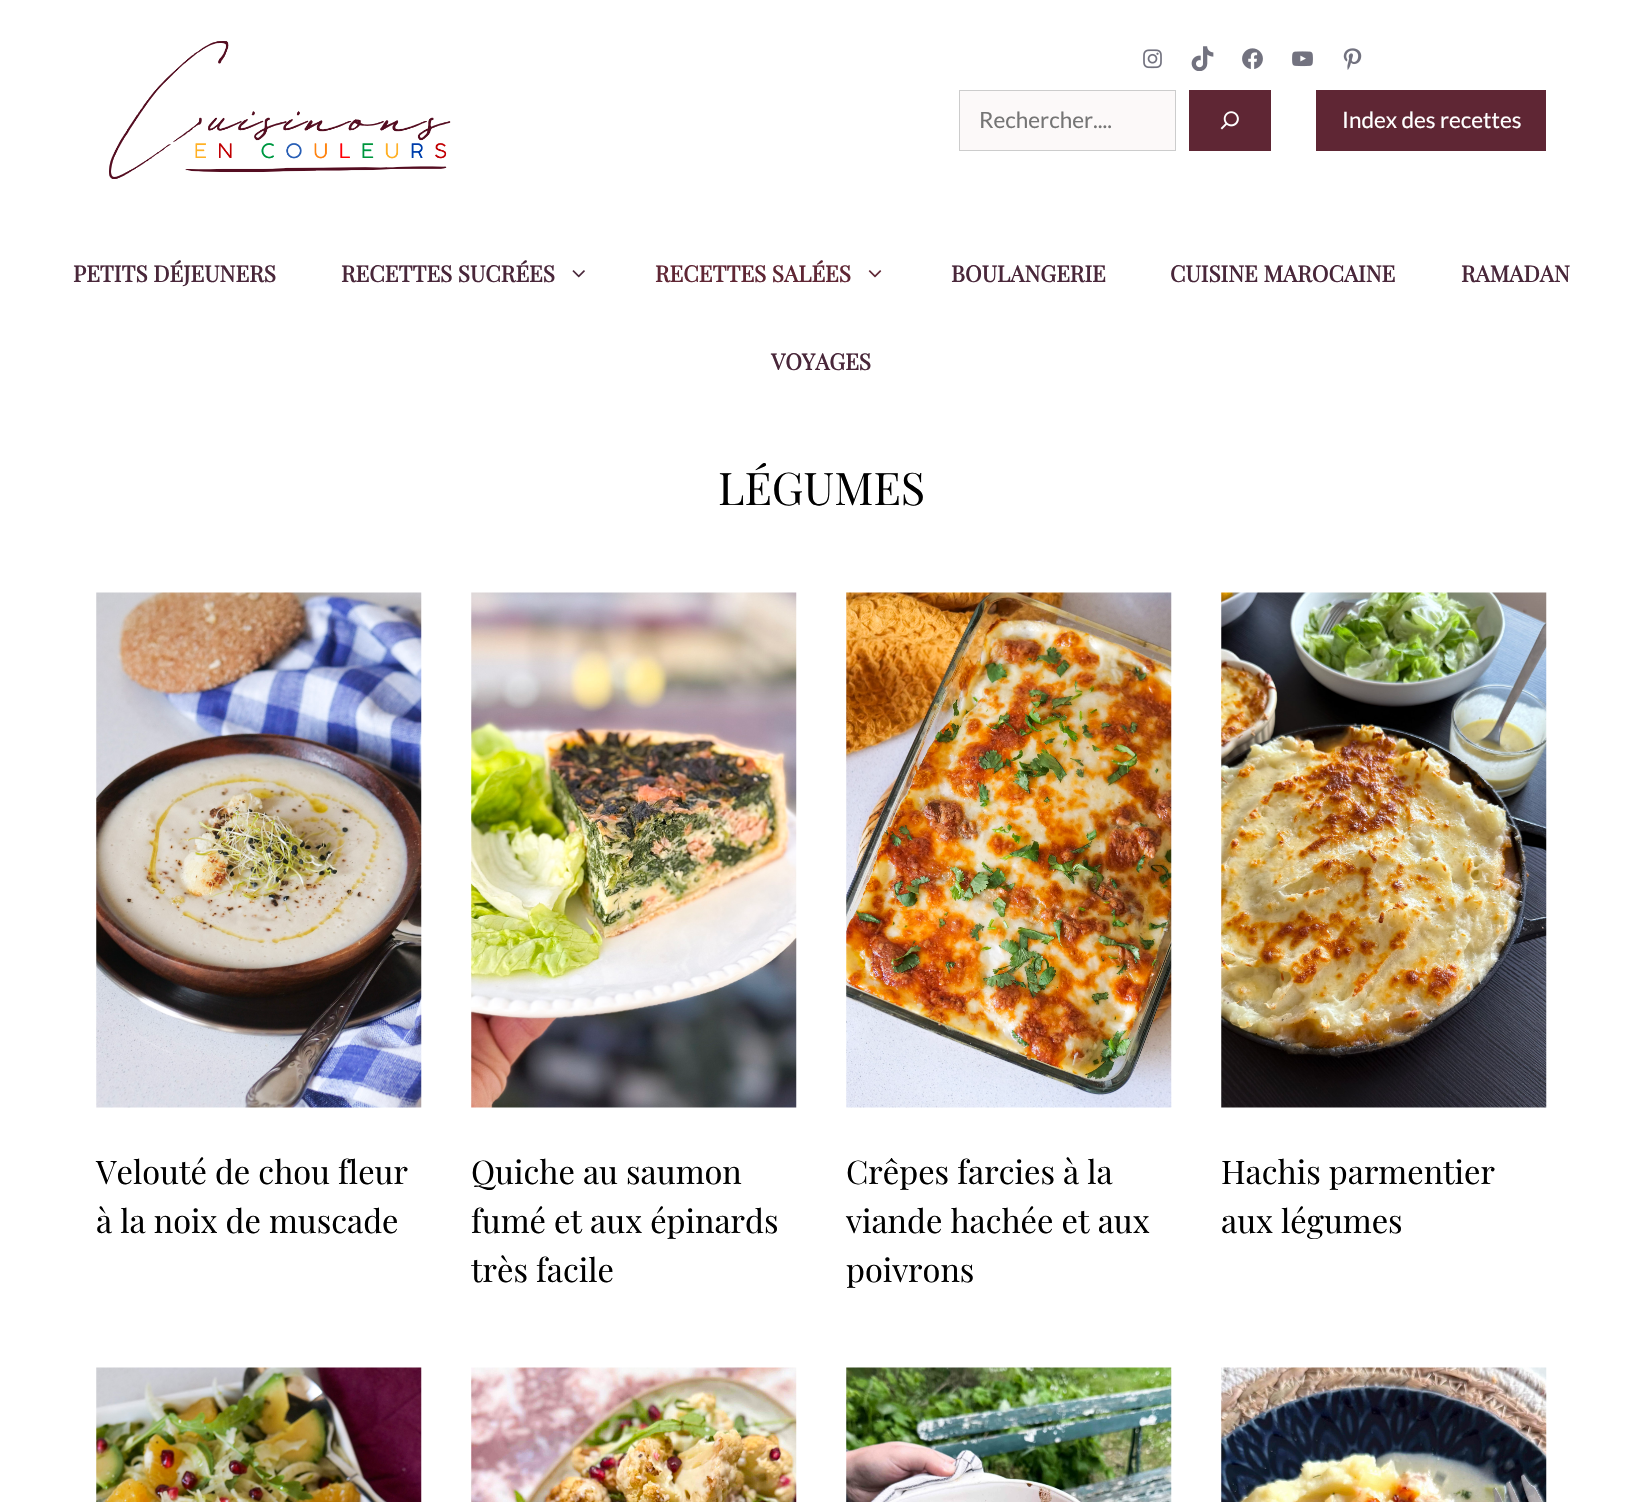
void draw(SkCanvas* canvas) {
	SkPaint paint;
	paint.setAntiAlias(true);
	canvas->clear(0xffffffff);
	canvas->drawImageRect(SkImages::DeferredFromEncodedData(SkData::MakeFromFileName("img1.png")), SkRect::MakeXYWH(109, 41, 342, 138), SkSamplingOptions());
	canvas->drawImageRect(SkImages::DeferredFromEncodedData(SkData::MakeFromFileName("img2.png")), SkRect::MakeXYWH(1143, 49, 19, 20), SkSamplingOptions());
	canvas->drawImageRect(SkImages::DeferredFromEncodedData(SkData::MakeFromFileName("img3.png")), SkRect::MakeXYWH(1191, 46, 23, 25), SkSamplingOptions());
	canvas->drawImageRect(SkImages::DeferredFromEncodedData(SkData::MakeFromFileName("img4.png")), SkRect::MakeXYWH(1242, 48, 21, 21), SkSamplingOptions());
	canvas->drawImageRect(SkImages::DeferredFromEncodedData(SkData::MakeFromFileName("img5.png")), SkRect::MakeXYWH(1292, 51, 21, 16), SkSamplingOptions());
	canvas->drawImageRect(SkImages::DeferredFromEncodedData(SkData::MakeFromFileName("img6.png")), SkRect::MakeXYWH(1343, 48, 19, 22), SkSamplingOptions());
	paint.setColor(0xfffcf9f9);
	canvas->drawRect(SkRect::MakeXYWH(959.5, 90.5, 216, 60), paint);
	paint.setStroke(true);
	paint.setStrokeWidth(1);
	paint.setColor(0xffcccccc);
	canvas->drawRect(SkRect::MakeXYWH(959.5, 90.5, 216, 60), paint);
	SkFont f1(fontMgr->matchFamilyStyle("Lato", SkFontStyle::Normal()), 22.5);
	f1.setSubpixel(true);
	paint.setStroke(false);
	paint.setColor(0xff757575);
	canvas->drawString("Rechercher....", 979, 128, f1, paint);
	paint.setColor(0xff5f2634);
	canvas->drawRect(SkRect::MakeXYWH(1189, 90, 82, 61), paint);
	canvas->drawImageRect(SkImages::DeferredFromEncodedData(SkData::MakeFromFileName("img7.png")), SkRect::MakeXYWH(1220, 111, 19, 19), SkSamplingOptions());
	canvas->drawRect(SkRect::MakeXYWH(1316, 90, 230, 61), paint);
	paint.setColor(0xffffffff);
	canvas->drawString("Index des recettes", 1342, 128, f1, paint);
	SkFont f2(fontMgr->matchFamilyStyle("Playfair Display", SkFontStyle::Bold()), 22.5);
	f2.setSubpixel(true);
	paint.setColor(0xff49273a);
	canvas->drawString("PETITS DÉJEUNERS", 73, 282, f2, paint);
	canvas->drawString("RECETTES SUCRÉES", 341, 282, f2, paint);
	canvas->drawImageRect(SkImages::DeferredFromEncodedData(SkData::MakeFromFileName("img8.png")), SkRect::MakeXYWH(572, 270, 13, 8), SkSamplingOptions());
	paint.setColor(0xff5f2634);
	canvas->drawString("RECETTES SALÉES", 655, 282, f2, paint);
	canvas->drawImageRect(SkImages::DeferredFromEncodedData(SkData::MakeFromFileName("img9.png")), SkRect::MakeXYWH(868, 270, 14, 8), SkSamplingOptions());
	paint.setColor(0xff49273a);
	canvas->drawString("BOULANGERIE", 951, 282, f2, paint);
	canvas->drawString("CUISINE MAROCAINE", 1170, 282, f2, paint);
	canvas->drawString("RAMADAN", 1461, 282, f2, paint);
	canvas->drawString("VOYAGES", 771, 370, f2, paint);
	SkFont f3(fontMgr->matchFamilyStyle("Playfair Display", SkFontStyle::Normal()), 45);
	f3.setSubpixel(true);
	paint.setColor(0xff000000);
	canvas->drawString("LÉGUMES", 718, 505, f3, paint);
	canvas->drawImageRect(SkImages::DeferredFromEncodedData(SkData::MakeFromFileName("img10.png")), SkRect::MakeXYWH(96, 592, 326, 516), SkSamplingOptions());
	SkFont f4(fontMgr->matchFamilyStyle("Playfair Display", SkFontStyle::Normal()), 32.5);
	f4.setSubpixel(true);
	canvas->drawString("Velouté de chou fleur", 96, 1184, f4, paint);
	canvas->drawString("à la noix de muscade", 96, 1233, f4, paint);
	canvas->drawImageRect(SkImages::DeferredFromEncodedData(SkData::MakeFromFileName("img11.png")), SkRect::MakeXYWH(471, 592, 326, 516), SkSamplingOptions());
	canvas->drawString("Quiche au saumon", 471, 1184, f4, paint);
	canvas->drawString("fumé et aux épinards", 471, 1233, f4, paint);
	canvas->drawString("très facile", 471, 1282, f4, paint);
	canvas->drawImageRect(SkImages::DeferredFromEncodedData(SkData::MakeFromFileName("img12.png")), SkRect::MakeXYWH(846, 592, 326, 516), SkSamplingOptions());
	canvas->drawString("Crêpes farcies à la", 846, 1184, f4, paint);
	canvas->drawString("viande hachée et aux", 846, 1233, f4, paint);
	canvas->drawString("poivrons", 846, 1282, f4, paint);
	canvas->drawImageRect(SkImages::DeferredFromEncodedData(SkData::MakeFromFileName("img13.png")), SkRect::MakeXYWH(1221, 592, 326, 516), SkSamplingOptions());
	canvas->drawString("Hachis parmentier", 1221, 1184, f4, paint);
	canvas->drawString("aux légumes", 1221, 1233, f4, paint);
	canvas->drawImageRect(SkImages::DeferredFromEncodedData(SkData::MakeFromFileName("img14.png")), SkRect::MakeXYWH(96, 1367, 326, 135), SkSamplingOptions());
	canvas->drawImageRect(SkImages::DeferredFromEncodedData(SkData::MakeFromFileName("img15.png")), SkRect::MakeXYWH(471, 1367, 326, 135), SkSamplingOptions());
	canvas->drawImageRect(SkImages::DeferredFromEncodedData(SkData::MakeFromFileName("img16.png")), SkRect::MakeXYWH(846, 1367, 326, 135), SkSamplingOptions());
	canvas->drawImageRect(SkImages::DeferredFromEncodedData(SkData::MakeFromFileName("img17.png")), SkRect::MakeXYWH(1221, 1367, 326, 135), SkSamplingOptions());
}
